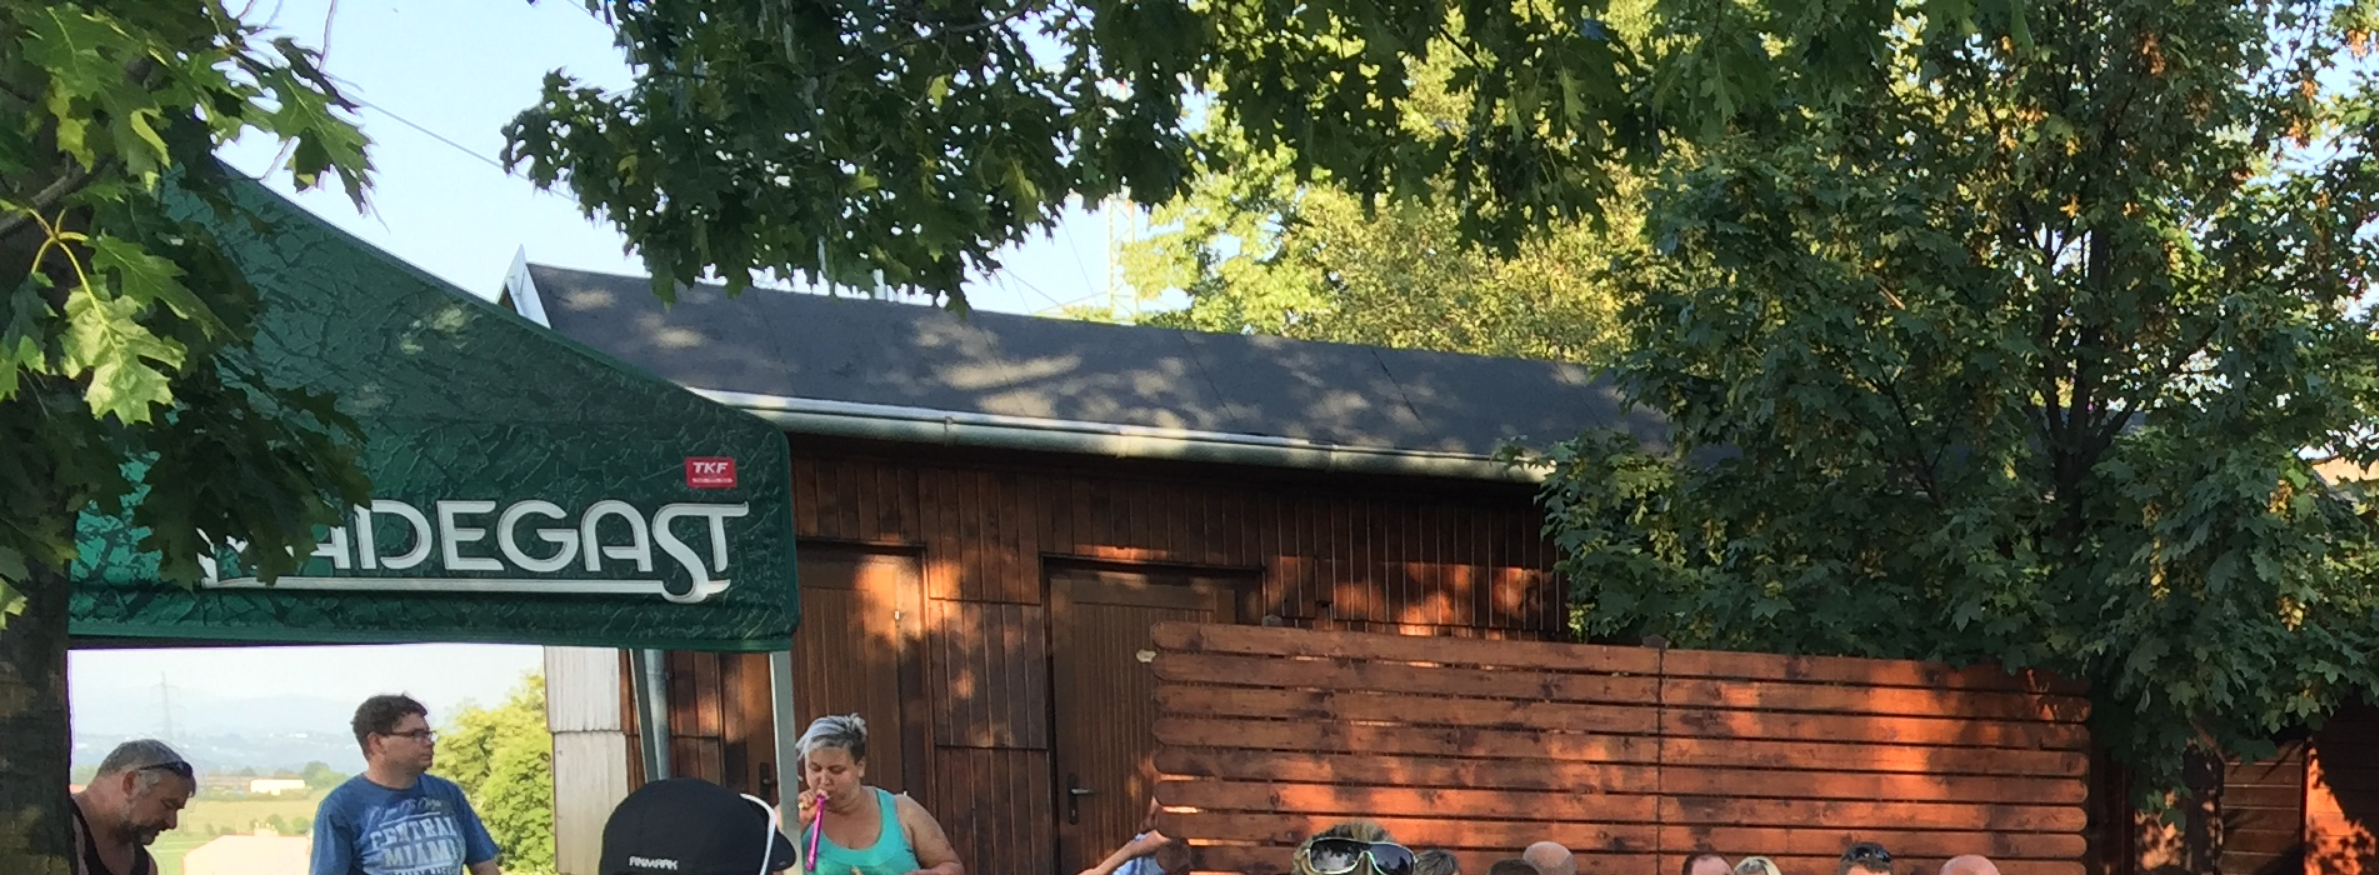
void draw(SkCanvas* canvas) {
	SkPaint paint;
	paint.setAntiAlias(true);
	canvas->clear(0xffffffff);
	canvas->drawImageRect(SkImages::DeferredFromEncodedData(SkData::MakeFromFileName("img1.png")), SkRect::MakeXYWH(0, 0, 2379, 875), SkSamplingOptions());
}
